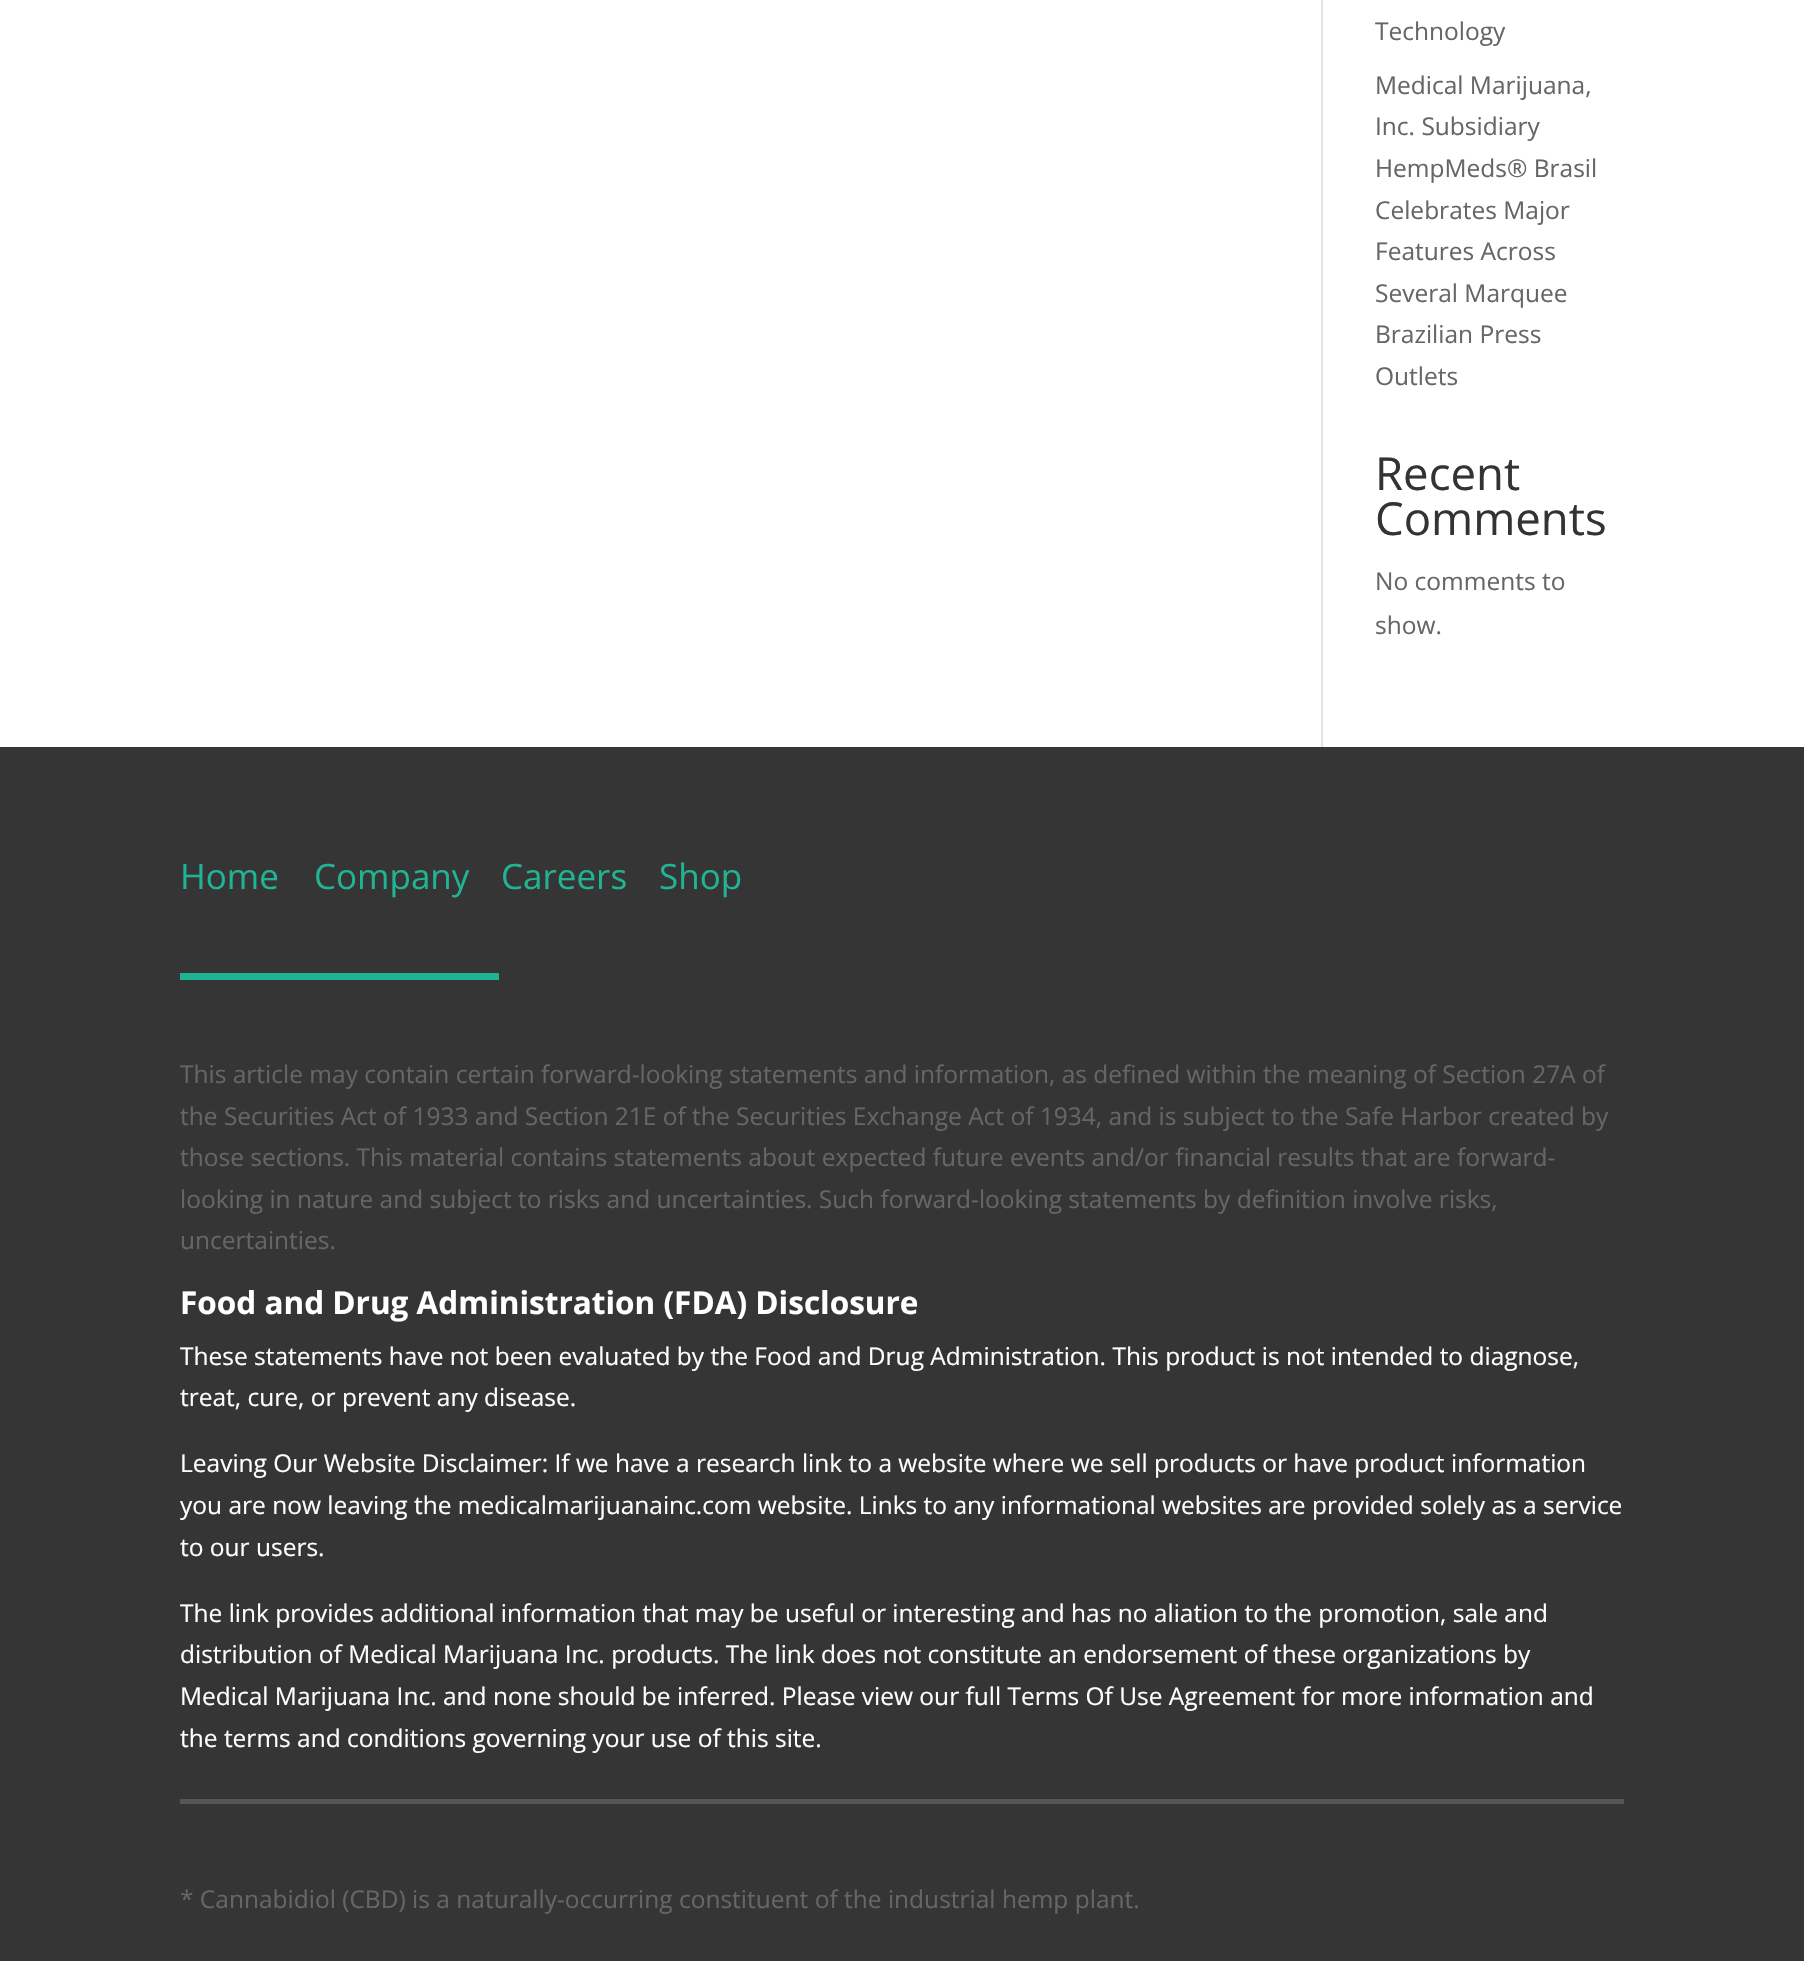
void draw(SkCanvas* canvas) {
	SkPaint paint;
	paint.setAntiAlias(true);
	canvas->clear(0xffffffff);
	paint.setColor(0xffe2e2e2);
	canvas->drawRect(SkRect::MakeXYWH(1321, 0, 2, 747), paint);
	SkFont f1(fontMgr->matchFamilyStyle("Open Sans", SkFontStyle::Normal()), 24.5);
	f1.setSubpixel(true);
	paint.setColor(0xff666666);
	canvas->drawString("Technology", 1375, 40, f1, paint);
	canvas->drawString("Medical Marijuana,", 1375, 94, f1, paint);
	canvas->drawString("Inc. Subsidiary", 1375, 135, f1, paint);
	canvas->drawString("HempMeds® Brasil", 1375, 177, f1, paint);
	canvas->drawString("Celebrates Major", 1375, 219, f1, paint);
	canvas->drawString("Features Across", 1375, 260, f1, paint);
	canvas->drawString("Several Marquee", 1375, 302, f1, paint);
	canvas->drawString("Brazilian Press", 1375, 343, f1, paint);
	canvas->drawString("Outlets", 1375, 385, f1, paint);
	SkFont f2(fontMgr->matchFamilyStyle("Open Sans", SkFontStyle::Normal()), 45.5);
	f2.setSubpixel(true);
	paint.setColor(0xff333333);
	canvas->drawString("Recent", 1375, 490, f2, paint);
	canvas->drawString("Comments", 1375, 535, f2, paint);
	paint.setColor(0xff666666);
	canvas->drawString("No comments to", 1375, 590, f1, paint);
	canvas->drawString("show.", 1375, 634, f1, paint);
	paint.setColor(0xff353535);
	canvas->drawRect(SkRect::MakeXYWH(0, 747, 1804, 1214), paint);
	SkFont f3(fontMgr->matchFamilyStyle("Open Sans", SkFontStyle::Normal()), 35);
	f3.setSubpixel(true);
	paint.setColor(0xff21b494);
	canvas->drawString("Home", 180, 889, f3, paint);
	canvas->drawString("Company", 314, 889, f3, paint);
	canvas->drawString("Careers", 501, 889, f3, paint);
	canvas->drawString("Shop", 659, 889, f3, paint);
	canvas->drawRect(SkRect::MakeXYWH(180, 973, 319, 7), paint);
	paint.setColor(0xff666666);
	canvas->drawString("This article may contain certain forward-looking statements and information, as defined within the meaning of Section 27A of", 180, 1083, f1, paint);
	canvas->drawString("the Securities Act of 1933 and Section 21E of the Securities Exchange Act of 1934, and is subject to the Safe Harbor created by", 180, 1125, f1, paint);
	canvas->drawString("those sections. This material contains statements about expected future events and/or financial results that are forward-", 180, 1166, f1, paint);
	canvas->drawString("looking in nature and subject to risks and uncertainties. Such forward-looking statements by definition involve risks,", 180, 1208, f1, paint);
	canvas->drawString("uncertainties.", 180, 1249, f1, paint);
	SkFont f4(fontMgr->matchFamilyStyle("Open Sans", SkFontStyle::Bold()), 31.5);
	f4.setSubpixel(true);
	paint.setColor(0xffffffff);
	canvas->drawString("Food and Drug Administration (FDA) Disclosure", 180, 1314, f4, paint);
	canvas->drawString("These statements have not been evaluated by the Food and Drug Administration. This product is not intended to diagnose,", 180, 1365, f1, paint);
	canvas->drawString("treat, cure, or prevent any disease.", 180, 1406, f1, paint);
	canvas->drawString("Leaving Our Website Disclaimer: If we have a research link to a website where we sell products or have product information", 180, 1472, f1, paint);
	canvas->drawString("you are now leaving the medicalmarijuanainc.com website. Links to any informational websites are provided solely as a service", 180, 1514, f1, paint);
	canvas->drawString("to our users.", 180, 1556, f1, paint);
	canvas->drawString("The link provides additional information that may be useful or interesting and has no aliation to the promotion, sale and", 180, 1622, f1, paint);
	canvas->drawString("distribution of Medical Marijuana Inc. products. The link does not constitute an endorsement of these organizations by", 180, 1663, f1, paint);
	canvas->drawString("Medical Marijuana Inc. and none should be inferred. Please view our full Terms Of Use Agreement for more information and", 180, 1705, f1, paint);
	canvas->drawString("the terms and conditions governing your use of this site.", 180, 1747, f1, paint);
	paint.setColor(0xff565656);
	canvas->drawRect(SkRect::MakeXYWH(180, 1799, 1444, 5), paint);
	paint.setColor(0xff666666);
	canvas->drawString("* Cannabidiol (CBD) is a naturally-occurring constituent of the industrial hemp plant.", 180, 1908, f1, paint);
}
